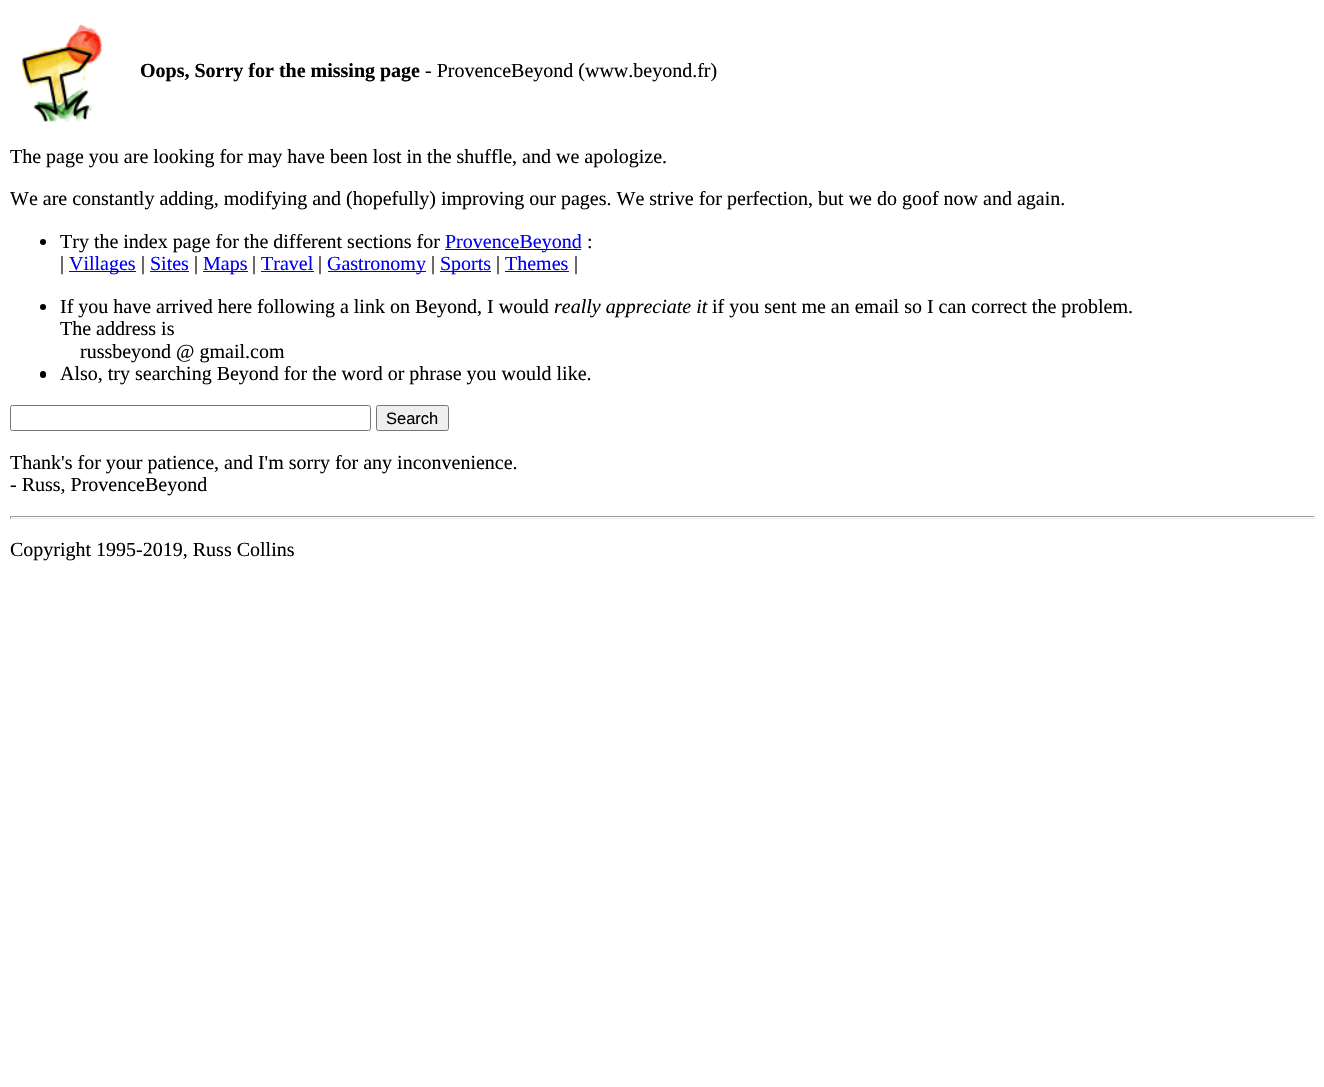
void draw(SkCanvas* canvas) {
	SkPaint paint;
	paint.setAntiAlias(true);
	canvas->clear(0xffffffff);
	canvas->drawImageRect(SkImages::DeferredFromEncodedData(SkData::MakeFromFileName("img1.png")), SkRect::MakeXYWH(21, 24, 82, 98), SkSamplingOptions());
	SkFont f1(fontMgr->matchFamilyStyle("Liberation Serif", SkFontStyle::Bold()), 20);
	f1.setSubpixel(true);
	paint.setColor(0xff000000);
	canvas->drawString("Oops, Sorry for the missing page", 140, 77, f1, paint);
	SkFont f2(fontMgr->matchFamilyStyle("Liberation Serif", SkFontStyle::Normal()), 20);
	f2.setSubpixel(true);
	canvas->drawString("- ProvenceBeyond (www.beyond.fr)", 425, 77, f2, paint);
	canvas->drawString("The page you are looking for may have been lost in the shuffle, and we apologize.", 10, 163, f2, paint);
	canvas->drawString("We are constantly adding, modifying and (hopefully) improving our pages. We strive for perfection, but we do goof now and again.", 10, 205, f2, paint);
	canvas->drawCircle(43, 242, 3, paint);
	canvas->drawString("Try the index page for the different sections for", 60, 248, f2, paint);
	paint.setColor(0xff0000ee);
	canvas->drawRect(SkRect::MakeXYWH(445, 249, 136, 1), paint);
	canvas->drawString("ProvenceBeyond", 445, 248, f2, paint);
	paint.setColor(0xff000000);
	canvas->drawString(":", 587, 248, f2, paint);
	canvas->drawString("|", 60, 270, f2, paint);
	paint.setColor(0xff0000ee);
	canvas->drawRect(SkRect::MakeXYWH(69, 271, 67, 1), paint);
	canvas->drawString("Villages", 69, 270, f2, paint);
	paint.setColor(0xff000000);
	canvas->drawString("|", 141, 270, f2, paint);
	paint.setColor(0xff0000ee);
	canvas->drawString("Sites", 150, 270, f2, paint);
	canvas->drawRect(SkRect::MakeXYWH(150, 271, 39, 1), paint);
	paint.setColor(0xff000000);
	canvas->drawString("|", 194, 270, f2, paint);
	paint.setColor(0xff0000ee);
	canvas->drawRect(SkRect::MakeXYWH(203, 271, 45, 1), paint);
	canvas->drawString("Maps", 203, 270, f2, paint);
	paint.setColor(0xff000000);
	canvas->drawString("|", 252, 270, f2, paint);
	paint.setColor(0xff0000ee);
	canvas->drawString("Travel", 261, 270, f2, paint);
	canvas->drawRect(SkRect::MakeXYWH(261, 271, 53, 1), paint);
	paint.setColor(0xff000000);
	canvas->drawString("|", 318, 270, f2, paint);
	paint.setColor(0xff0000ee);
	canvas->drawRect(SkRect::MakeXYWH(328, 271, 98, 1), paint);
	canvas->drawString("Gastronomy", 327, 270, f2, paint);
	paint.setColor(0xff000000);
	canvas->drawString("|", 431, 270, f2, paint);
	paint.setColor(0xff0000ee);
	canvas->drawRect(SkRect::MakeXYWH(440, 271, 51, 1), paint);
	canvas->drawString("Sports", 440, 270, f2, paint);
	paint.setColor(0xff000000);
	canvas->drawString("|", 496, 270, f2, paint);
	paint.setColor(0xff0000ee);
	canvas->drawString("Themes", 505, 270, f2, paint);
	canvas->drawRect(SkRect::MakeXYWH(505, 271, 64, 1), paint);
	paint.setColor(0xff000000);
	canvas->drawString("|", 574, 270, f2, paint);
	canvas->drawCircle(43, 307, 3, paint);
	canvas->drawString("If you have arrived here following a link on Beyond, I would", 60, 313, f2, paint);
	SkFont f3(fontMgr->matchFamilyStyle("Liberation Serif", SkFontStyle::Italic()), 20);
	f3.setSubpixel(true);
	canvas->drawString("really appreciate it", 554, 313, f3, paint);
	canvas->drawString("if you sent me an email so I can correct the problem.", 712, 313, f2, paint);
	canvas->drawString("The address is", 60, 335, f2, paint);
	canvas->drawString("russbeyond @ gmail.com", 80, 358, f2, paint);
	canvas->drawRoundRect(SkRect::MakeXYWH(40, 371, 6, 7), 3, 3, paint);
	canvas->drawString("Also, try searching Beyond for the word or phrase you would like.", 60, 380, f2, paint);
	paint.setStroke(true);
	paint.setStrokeWidth(1);
	paint.setColor(0xff767676);
	canvas->drawRoundRect(SkRect::MakeXYWH(10.5, 405.5, 360, 25), 2, 2, paint);
	paint.setStroke(false);
	paint.setColor(0xffefefef);
	canvas->drawRoundRect(SkRect::MakeXYWH(376.5, 405.5, 72, 25), 2, 2, paint);
	paint.setStroke(true);
	paint.setColor(0xff767676);
	canvas->drawRoundRect(SkRect::MakeXYWH(376.5, 405.5, 72, 25), 2, 2, paint);
	SkFont f4(fontMgr->matchFamilyStyle("Liberation Sans", SkFontStyle::Normal()), 16.5);
	f4.setSubpixel(true);
	paint.setStroke(false);
	paint.setColor(0xff000000);
	canvas->drawString("Search", 386, 424, f4, paint);
	canvas->drawString("Thank's for your patience, and I'm sorry for any inconvenience.", 10, 469, f2, paint);
	canvas->drawString("- Russ, ProvenceBeyond", 10, 491, f2, paint);
	paint.setColor(0xff9f9f9f);
	canvas->drawRect(SkRect::MakeXYWH(10, 516, 1305, 1), paint);
	paint.setColor(0xffeeeeee);
	canvas->drawRect(SkRect::MakeXYWH(1314, 516, 1, 3), paint);
	canvas->drawRect(SkRect::MakeXYWH(10, 518, 1305, 1), paint);
	paint.setColor(0xff9f9f9f);
	canvas->drawRect(SkRect::MakeXYWH(10, 516, 1, 3), paint);
	paint.setColor(0xff000000);
	canvas->drawString("Copyright 1995-2019, Russ Collins", 10, 556, f2, paint);
}
